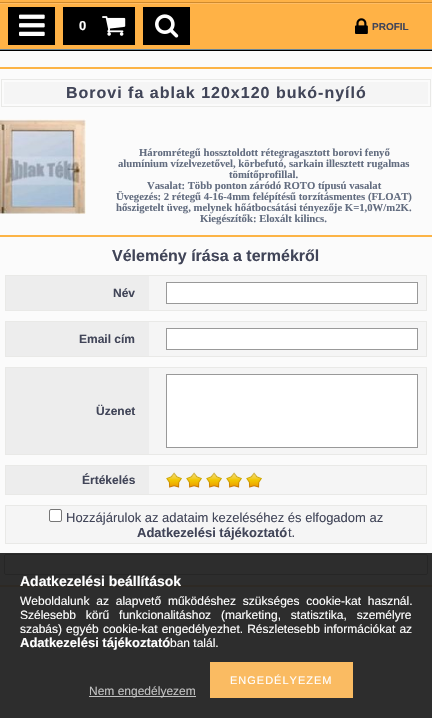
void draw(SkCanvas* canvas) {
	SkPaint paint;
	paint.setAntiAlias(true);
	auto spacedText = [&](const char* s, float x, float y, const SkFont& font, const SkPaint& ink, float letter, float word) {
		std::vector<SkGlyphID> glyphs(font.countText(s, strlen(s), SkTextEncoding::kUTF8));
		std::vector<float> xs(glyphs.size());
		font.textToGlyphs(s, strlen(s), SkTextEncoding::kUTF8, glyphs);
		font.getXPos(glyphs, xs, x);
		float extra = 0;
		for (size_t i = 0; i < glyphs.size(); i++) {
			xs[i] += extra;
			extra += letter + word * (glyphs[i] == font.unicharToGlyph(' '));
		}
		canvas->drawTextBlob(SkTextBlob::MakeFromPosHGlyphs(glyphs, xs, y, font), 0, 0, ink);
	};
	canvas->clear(0xfffbfbfb);
	paint.setColor(0xff2d2d2d);
	canvas->drawRect(SkRect::MakeXYWH(0, 553, 432, 165), paint);
	paint.setColor(0xffffb246);
	canvas->drawRect(SkRect::MakeXYWH(0, 0, 432, 49), paint);
	paint.setColor(0xff000000);
	canvas->drawRect(SkRect::MakeXYWH(0, 50, 432, 1), paint);
	paint.setColor(0xff6d8696);
	canvas->drawRect(SkRect::MakeXYWH(0, 49, 432, 1), paint);
	canvas->drawImageRect(SkImages::DeferredFromEncodedData(SkData::MakeFromFileName("img1.png")), SkRect::MakeXYWH(0, 2, 432, 2), SkSamplingOptions());
	paint.setColor(0xff000000);
	canvas->drawRect(SkRect::MakeXYWH(8, 7, 47, 38), paint);
	canvas->drawImageRect(SkImages::DeferredFromEncodedData(SkData::MakeFromFileName("img2.png")), SkRect::MakeXYWH(19, 14, 26, 22), SkSamplingOptions());
	canvas->drawRect(SkRect::MakeXYWH(63, 7, 72, 38), paint);
	SkFont f1(fontMgr->matchFamilyStyle("Liberation Sans", SkFontStyle::Bold()), 13);
	f1.setSubpixel(true);
	paint.setColor(0xffffffff);
	canvas->drawString("0", 79, 30, f1, paint);
	canvas->drawImageRect(SkImages::DeferredFromEncodedData(SkData::MakeFromFileName("img3.png")), SkRect::MakeXYWH(102, 16, 24, 20), SkSamplingOptions());
	paint.setColor(0xff000000);
	canvas->drawRect(SkRect::MakeXYWH(143, 7, 47, 38), paint);
	canvas->drawImageRect(SkImages::DeferredFromEncodedData(SkData::MakeFromFileName("img4.png")), SkRect::MakeXYWH(155, 14, 24, 24), SkSamplingOptions());
	canvas->drawImageRect(SkImages::DeferredFromEncodedData(SkData::MakeFromFileName("img5.png")), SkRect::MakeXYWH(355, 18, 13, 16), SkSamplingOptions());
	SkFont f2(fontMgr->matchFamilyStyle("Liberation Sans", SkFontStyle::Bold()), 10);
	f2.setSubpixel(true);
	paint.setColor(0xff414558);
	canvas->drawString("PROFIL", 372, 30, f2, paint);
	paint.setColor(0xfffcb446);
	canvas->drawRect(SkRect::MakeXYWH(0, 67, 432, 2), paint);
	paint.setStroke(true);
	paint.setStrokeWidth(1);
	paint.setColor(0xffe9e9e7);
	canvas->drawRect(SkRect::MakeXYWH(1.5, 79.5, 429, 27), paint);
	paint.setStroke(false);
	paint.setColor(0xfff5f5f5);
	canvas->drawRect(SkRect::MakeXYWH(4, 82, 424, 22), paint);
	SkFont f3(fontMgr->matchFamilyStyle("Liberation Sans", SkFontStyle::Bold()), 16);
	f3.setSubpixel(true);
	paint.setColor(0xff414558);
	spacedText("Borovi fa ablak 120x120 bukó-nyíló", 66, 98, f3, paint, 1, 0);
	canvas->drawImageRect(SkImages::DeferredFromEncodedData(SkData::MakeFromFileName("img6.png")), SkRect::MakeXYWH(0, 119, 86, 95), SkSamplingOptions());
	SkFont f4(fontMgr->matchFamilyStyle("Liberation Serif", SkFontStyle::Bold()), 10.7);
	f4.setSubpixel(true);
	paint.setColor(0xff636d80);
	canvas->drawString("Háromrétegű hossztoldott rétegragasztott borovi fenyő", 139, 156, f4, paint);
	canvas->drawString("alumínium vízelvezetővel, körbefutó, sarkain illesztett rugalmas", 118, 167, f4, paint);
	canvas->drawString("tömítőprofillal.", 229, 178, f4, paint);
	canvas->drawString("Vasalat: Több ponton záródó ROTO típusú vasalat", 147, 189, f4, paint);
	canvas->drawString("Üvegezés: 2 rétegű 4-16-4mm felépítésű torzításmentes (FLOAT)", 116, 200, f4, paint);
	canvas->drawString("hőszigetelt üveg, melynek hőátbocsátási tényezője K=1,0W/m2K.", 116, 211, f4, paint);
	canvas->drawString("Kiegészítők: Eloxált kilincs.", 200, 222, f4, paint);
	paint.setColor(0xfffcb446);
	canvas->drawRect(SkRect::MakeXYWH(0, 235, 432, 2), paint);
	paint.setColor(0xff414558);
	canvas->drawString("Vélemény írása a termékről", 112, 261, f3, paint);
	paint.setStroke(true);
	paint.setColor(0xffe9e9e7);
	canvas->drawRect(SkRect::MakeXYWH(5.5, 275.5, 421, 35), paint);
	paint.setStroke(false);
	paint.setColor(0xffededed);
	canvas->drawRect(SkRect::MakeXYWH(6, 276, 143, 34), paint);
	SkFont f5(fontMgr->matchFamilyStyle("Liberation Sans", SkFontStyle::Bold()), 12);
	f5.setSubpixel(true);
	paint.setColor(0xff414558);
	canvas->drawString("Név", 113, 297, f5, paint);
	paint.setColor(0xfff5f5f5);
	canvas->drawRect(SkRect::MakeXYWH(149, 276, 277, 34), paint);
	paint.setColor(0xffffffff);
	canvas->drawRect(SkRect::MakeXYWH(166.5, 282.5, 251, 21), paint);
	paint.setStroke(true);
	paint.setColor(0xff999999);
	canvas->drawRect(SkRect::MakeXYWH(166.5, 282.5, 251, 21), paint);
	paint.setColor(0xffe9e9e7);
	canvas->drawRect(SkRect::MakeXYWH(5.5, 321.5, 421, 35), paint);
	paint.setStroke(false);
	paint.setColor(0xffededed);
	canvas->drawRect(SkRect::MakeXYWH(6, 322, 143, 34), paint);
	paint.setColor(0xff414558);
	canvas->drawString("Email cím", 79, 343, f5, paint);
	paint.setColor(0xfff5f5f5);
	canvas->drawRect(SkRect::MakeXYWH(149, 322, 277, 34), paint);
	paint.setColor(0xffffffff);
	canvas->drawRect(SkRect::MakeXYWH(166.5, 328.5, 251, 21), paint);
	paint.setStroke(true);
	paint.setColor(0xff999999);
	canvas->drawRect(SkRect::MakeXYWH(166.5, 328.5, 251, 21), paint);
	paint.setColor(0xffe9e9e7);
	canvas->drawRect(SkRect::MakeXYWH(5.5, 367.5, 421, 87), paint);
	paint.setStroke(false);
	paint.setColor(0xffededed);
	canvas->drawRect(SkRect::MakeXYWH(6, 368, 143, 86), paint);
	paint.setColor(0xff414558);
	canvas->drawString("Üzenet", 96, 415, f5, paint);
	paint.setColor(0xfff5f5f5);
	canvas->drawRect(SkRect::MakeXYWH(149, 368, 277, 86), paint);
	paint.setColor(0xffffffff);
	canvas->drawRect(SkRect::MakeXYWH(166.5, 374.5, 251, 73), paint);
	paint.setStroke(true);
	paint.setColor(0xff999999);
	canvas->drawRect(SkRect::MakeXYWH(166.5, 374.5, 251, 73), paint);
	paint.setColor(0xffe9e9e7);
	canvas->drawRect(SkRect::MakeXYWH(5.5, 465.5, 421, 29), paint);
	paint.setStroke(false);
	paint.setColor(0xffededed);
	canvas->drawRect(SkRect::MakeXYWH(6, 466, 143, 28), paint);
	paint.setColor(0xff414558);
	canvas->drawString("Értékelés", 82, 484, f5, paint);
	paint.setColor(0xfff5f5f5);
	canvas->drawRect(SkRect::MakeXYWH(149, 466, 277, 28), paint);
	canvas->drawImageRect(SkImages::DeferredFromEncodedData(SkData::MakeFromFileName("img7.png")), SkRect::MakeXYWH(166, 472, 16, 16), SkSamplingOptions());
	canvas->drawImageRect(SkImages::DeferredFromEncodedData(SkData::MakeFromFileName("img7.png")), SkRect::MakeXYWH(186, 472, 16, 16), SkSamplingOptions());
	canvas->drawImageRect(SkImages::DeferredFromEncodedData(SkData::MakeFromFileName("img7.png")), SkRect::MakeXYWH(206, 472, 16, 16), SkSamplingOptions());
	canvas->drawImageRect(SkImages::DeferredFromEncodedData(SkData::MakeFromFileName("img7.png")), SkRect::MakeXYWH(226, 472, 16, 16), SkSamplingOptions());
	canvas->drawImageRect(SkImages::DeferredFromEncodedData(SkData::MakeFromFileName("img7.png")), SkRect::MakeXYWH(246, 472, 16, 16), SkSamplingOptions());
	paint.setStroke(true);
	paint.setColor(0xffe9e9e7);
	canvas->drawRect(SkRect::MakeXYWH(5.5, 505.5, 421, 38), paint);
	paint.setStroke(false);
	paint.setColor(0xfff5f5f5);
	canvas->drawRect(SkRect::MakeXYWH(6, 506, 420, 37), paint);
	paint.setColor(0xffffffff);
	canvas->drawRoundRect(SkRect::MakeXYWH(49.5, 509.5, 12, 12), 1.5, 1.5, paint);
	paint.setStroke(true);
	paint.setColor(0xff767676);
	canvas->drawRoundRect(SkRect::MakeXYWH(49.5, 509.5, 12, 12), 1.5, 1.5, paint);
	SkFont f6(fontMgr->matchFamilyStyle("Liberation Sans", SkFontStyle::Normal()), 13);
	f6.setSubpixel(true);
	paint.setStroke(false);
	paint.setColor(0xff414558);
	canvas->drawString("Hozzájárulok az adataim kezeléséhez és elfogadom az", 66, 522, f6, paint);
	canvas->drawString("Adatkezelési tájékoztató", 137, 537, f1, paint);
	canvas->drawString("t.", 288, 537, f6, paint);
	paint.setStroke(true);
	paint.setColor(0xff262626);
	canvas->drawRoundRect(SkRect::MakeXYWH(4.5, 554.5, 423, 20), 1.5, 1.5, paint);
	paint.setStroke(false);
	paint.setColor(0xff2d2924);
	canvas->drawRect(SkRect::MakeXYWH(0, 585, 432, 2), paint);
	SkFont f7(fontMgr->matchFamilyStyle("Liberation Sans", SkFontStyle::Bold()), 14);
	f7.setSubpixel(true);
	paint.setColor(0xffffffff);
	canvas->drawString("Adatkezelési beállítások", 20, 586, f7, paint);
	SkFont f8(fontMgr->matchFamilyStyle("Liberation Sans", SkFontStyle::Normal()), 12);
	f8.setSubpixel(true);
	spacedText("Weboldalunk az alapvető működéshez szükséges cookie-kat használ.", 20, 605, f8, paint, 0, 3.5);
	spacedText("Szélesebb körű funkcionalitáshoz (marketing, statisztika, személyre", 20, 619, f8, paint, 0, 6.5);
	spacedText("szabás) egyéb cookie-kat engedélyezhet. Részletesebb információkat az", 20, 633, f8, paint, 0, 0.75);
	canvas->drawString("Adatkezelési tájékoztató", 20, 647, f1, paint);
	canvas->drawString("ban talál.", 170, 647, f8, paint);
	paint.setColor(0xfffabb62);
	canvas->drawRect(SkRect::MakeXYWH(210, 662, 143, 36), paint);
	SkFont f9(fontMgr->matchFamilyStyle("Liberation Sans", SkFontStyle::Normal()), 11);
	f9.setSubpixel(true);
	paint.setColor(0xffffffff);
	spacedText("ENGEDÉLYEZEM", 230, 684, f9, paint, 1, 0);
	paint.setColor(0xffc0c0c0);
	canvas->drawRect(SkRect::MakeXYWH(89, 696, 107, 1), paint);
	canvas->drawString("Nem engedélyezem", 89, 695, f8, paint);
}
